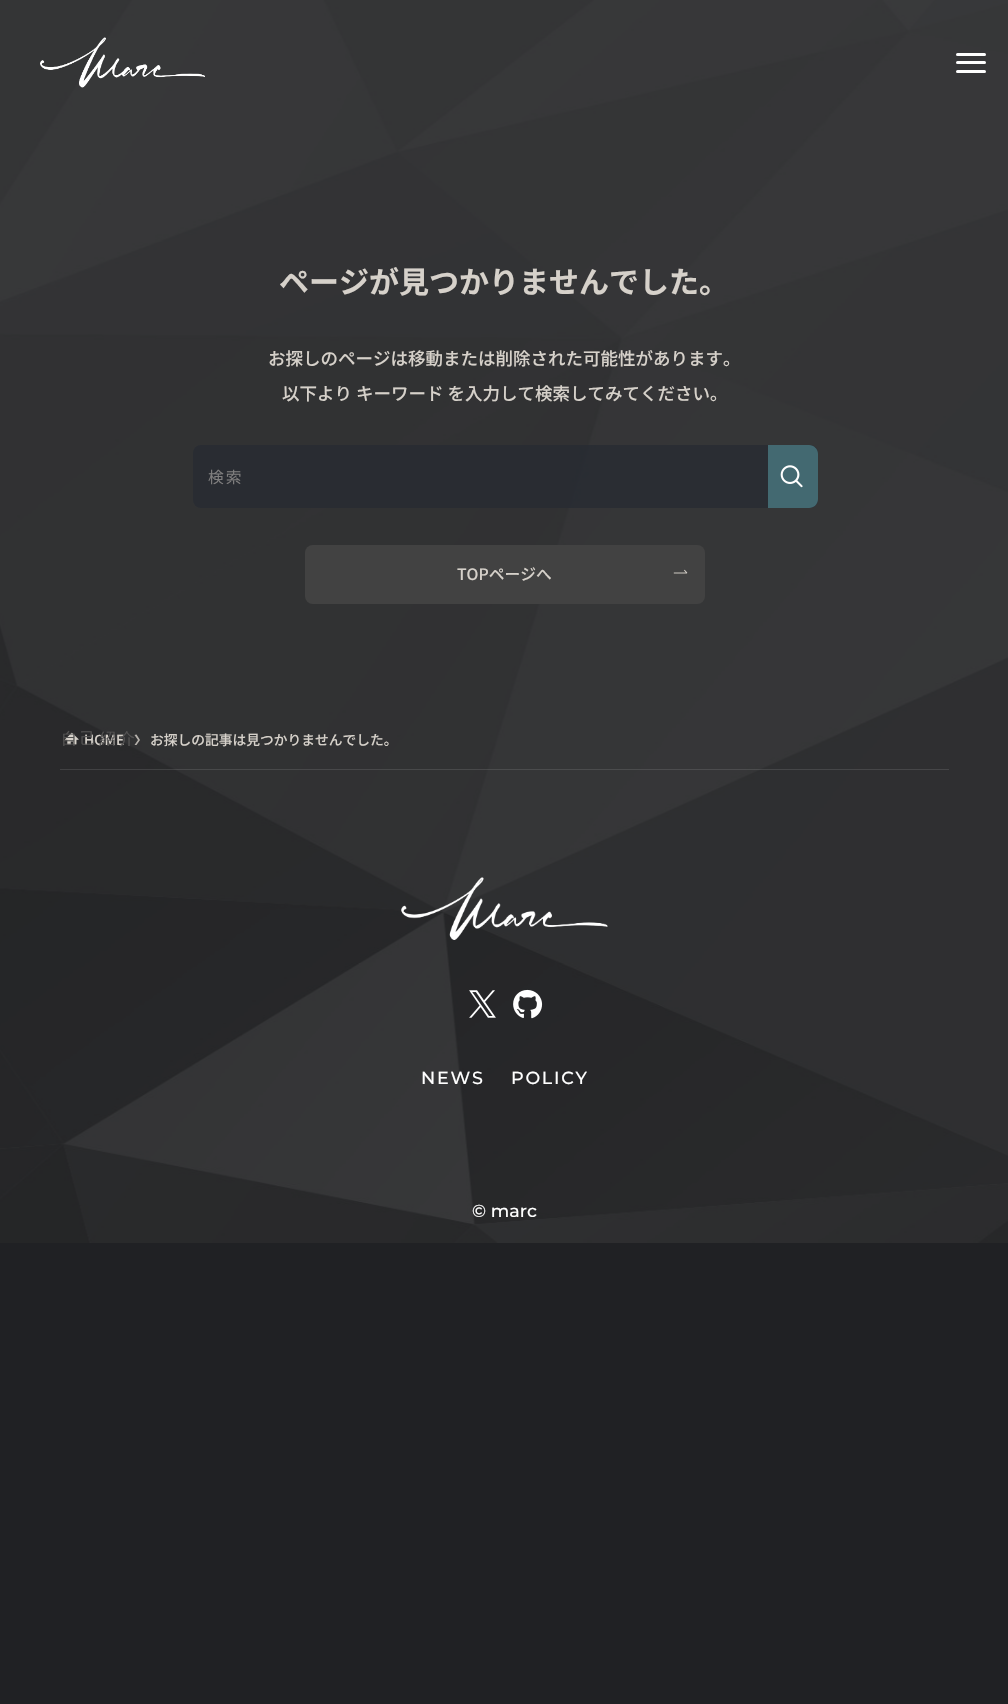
void draw(SkCanvas* canvas) {
	SkPaint paint;
	paint.setAntiAlias(true);
	auto spacedText = [&](const char* s, float x, float y, const SkFont& font, const SkPaint& ink, float letter, float word) {
		std::vector<SkGlyphID> glyphs(font.countText(s, strlen(s), SkTextEncoding::kUTF8));
		std::vector<float> xs(glyphs.size());
		font.textToGlyphs(s, strlen(s), SkTextEncoding::kUTF8, glyphs);
		font.getXPos(glyphs, xs, x);
		float extra = 0;
		for (size_t i = 0; i < glyphs.size(); i++) {
			xs[i] += extra;
			extra += letter + word * (glyphs[i] == font.unicharToGlyph(' '));
		}
		canvas->drawTextBlob(SkTextBlob::MakeFromPosHGlyphs(glyphs, xs, y, font), 0, 0, ink);
	};
	auto svgPath = [&](const char* data, bool evenOdd = false) {
		SkPath result = *SkParsePath::FromSVGString(data);
		if (evenOdd) result.setFillType(SkPathFillType::kEvenOdd);
		return result;
	};
	canvas->clear(0xff202124);
	canvas->drawImageRect(SkImages::DeferredFromEncodedData(SkData::MakeFromFileName("img1.png")), SkRect::MakeXYWH(0, 0, 1008, 1243), SkSamplingOptions());
	canvas->drawImageRect(SkImages::DeferredFromEncodedData(SkData::MakeFromFileName("img2.png")), SkRect::MakeXYWH(40, 37, 165, 51), SkSamplingOptions());
	paint.setColor(0xffffffff);
	canvas->drawRoundRect(SkRect::MakeXYWH(956, 53, 30, 3), 1.5, 1.5, paint);
	canvas->drawRoundRect(SkRect::MakeXYWH(956, 61, 30, 3), 1.5, 1.5, paint);
	canvas->drawRoundRect(SkRect::MakeXYWH(956, 70, 30, 3), 1.5, 1.5, paint);
	SkFont f1(fontMgr->matchFamilyStyle("Noto Sans JP", SkFontStyle::Bold()), 30);
	f1.setSubpixel(true);
	paint.setColor(0xffd6d1ca);
	canvas->drawString("ページが見つかりませんでした。", 279, 293, f1, paint);
	SkFont f2(fontMgr->matchFamilyStyle("Noto Sans JP", SkFontStyle(500, SkFontStyle::kNormal_Width, SkFontStyle::kUpright_Slant)), 17.5);
	f2.setSubpixel(true);
	canvas->drawString("お探しのページは移動または削除された可能性があります。", 268, 365, f2, paint);
	canvas->drawString("以下より キーワード を入力して検索してみてください。", 282, 400, f2, paint);
	paint.setColor(0xbf252932);
	canvas->drawRoundRect(SkRect::MakeXYWH(193, 445, 625, 63), 8, 8, paint);
	SkFont f3(fontMgr->matchFamilyStyle("Noto Sans JP", SkFontStyle::Normal()), 15.75);
	f3.setSubpixel(true);
	paint.setColor(0xff7f7e7e);
	spacedText("検索", 208, 483, f3, paint, 2, 0);
	paint.setColor(0xff436971);
	canvas->drawPath(svgPath("M768 445H809C814 445 818 449 818 454V499C818 504 814 508 809 508H768Z"), paint);
	canvas->drawImageRect(SkImages::DeferredFromEncodedData(SkData::MakeFromFileName("img3.png")), SkRect::MakeXYWH(780, 465, 23, 23), SkSamplingOptions());
	paint.setColor(0xff424242);
	canvas->drawRoundRect(SkRect::MakeXYWH(305, 545, 400, 59), 8, 8, paint);
	SkFont f4(fontMgr->matchFamilyStyle("Noto Sans JP", SkFontStyle(500, SkFontStyle::kNormal_Width, SkFontStyle::kUpright_Slant)), 15.75);
	f4.setSubpixel(true);
	paint.setColor(0xffd6d1ca);
	canvas->drawString("TOPページへ", 457, 580, f4, paint);
	canvas->drawImageRect(SkImages::DeferredFromEncodedData(SkData::MakeFromFileName("img4.png")), SkRect::MakeXYWH(673, 569, 15, 5), SkSamplingOptions());
	canvas->drawImageRect(SkImages::DeferredFromEncodedData(SkData::MakeFromFileName("img5.png")), SkRect::MakeXYWH(65, 732, 14, 13), SkSamplingOptions());
	SkFont f5(fontMgr->matchFamilyStyle("Noto Sans JP", SkFontStyle(500, SkFontStyle::kNormal_Width, SkFontStyle::kUpright_Slant)), 13.75);
	f5.setSubpixel(true);
	canvas->drawString("HOME", 84, 745, f5, paint);
	paint.setColor(0xffb5b1ac);
	canvas->drawPath(svgPath("M136.5 734.5L134.5 735L138 740L134.5 745H136.5L140 740Z"), paint);
	SkFont f6(fontMgr->matchFamilyStyle("WenQuanYi Zen Hei", SkFontStyle(500, SkFontStyle::kNormal_Width, SkFontStyle::kUpright_Slant)), 16.25);
	f6.setSubpixel(true);
	paint.setColor(0xff535252);
	spacedText("自己紹介", 61, 744, f6, paint, 3, 0);
	paint.setColor(0xffd6d1ca);
	canvas->drawString("お探しの記事は見つかりませんでした。", 150, 745, f5, paint);
	paint.setColor(0x26c7c7c7);
	canvas->drawRect(SkRect::MakeXYWH(60, 769, 889, 1), paint);
	canvas->drawImageRect(SkImages::DeferredFromEncodedData(SkData::MakeFromFileName("img6.png")), SkRect::MakeXYWH(401, 877, 207, 63), SkSamplingOptions());
	canvas->drawImageRect(SkImages::DeferredFromEncodedData(SkData::MakeFromFileName("img7.png")), SkRect::MakeXYWH(469, 990, 27, 28), SkSamplingOptions());
	canvas->drawImageRect(SkImages::DeferredFromEncodedData(SkData::MakeFromFileName("img8.png")), SkRect::MakeXYWH(513, 989, 30, 30), SkSamplingOptions());
	SkFont f7(fontMgr->matchFamilyStyle("Montserrat", SkFontStyle(500, SkFontStyle::kNormal_Width, SkFontStyle::kUpright_Slant)), 17.5);
	f7.setSubpixel(true);
	paint.setColor(0xffffffff);
	spacedText("NEWS", 421, 1084, f7, paint, 1.75, 0);
	spacedText("POLICY", 511, 1084, f7, paint, 1.75, 0);
	canvas->drawString("© marc", 472, 1217, f7, paint);
}
